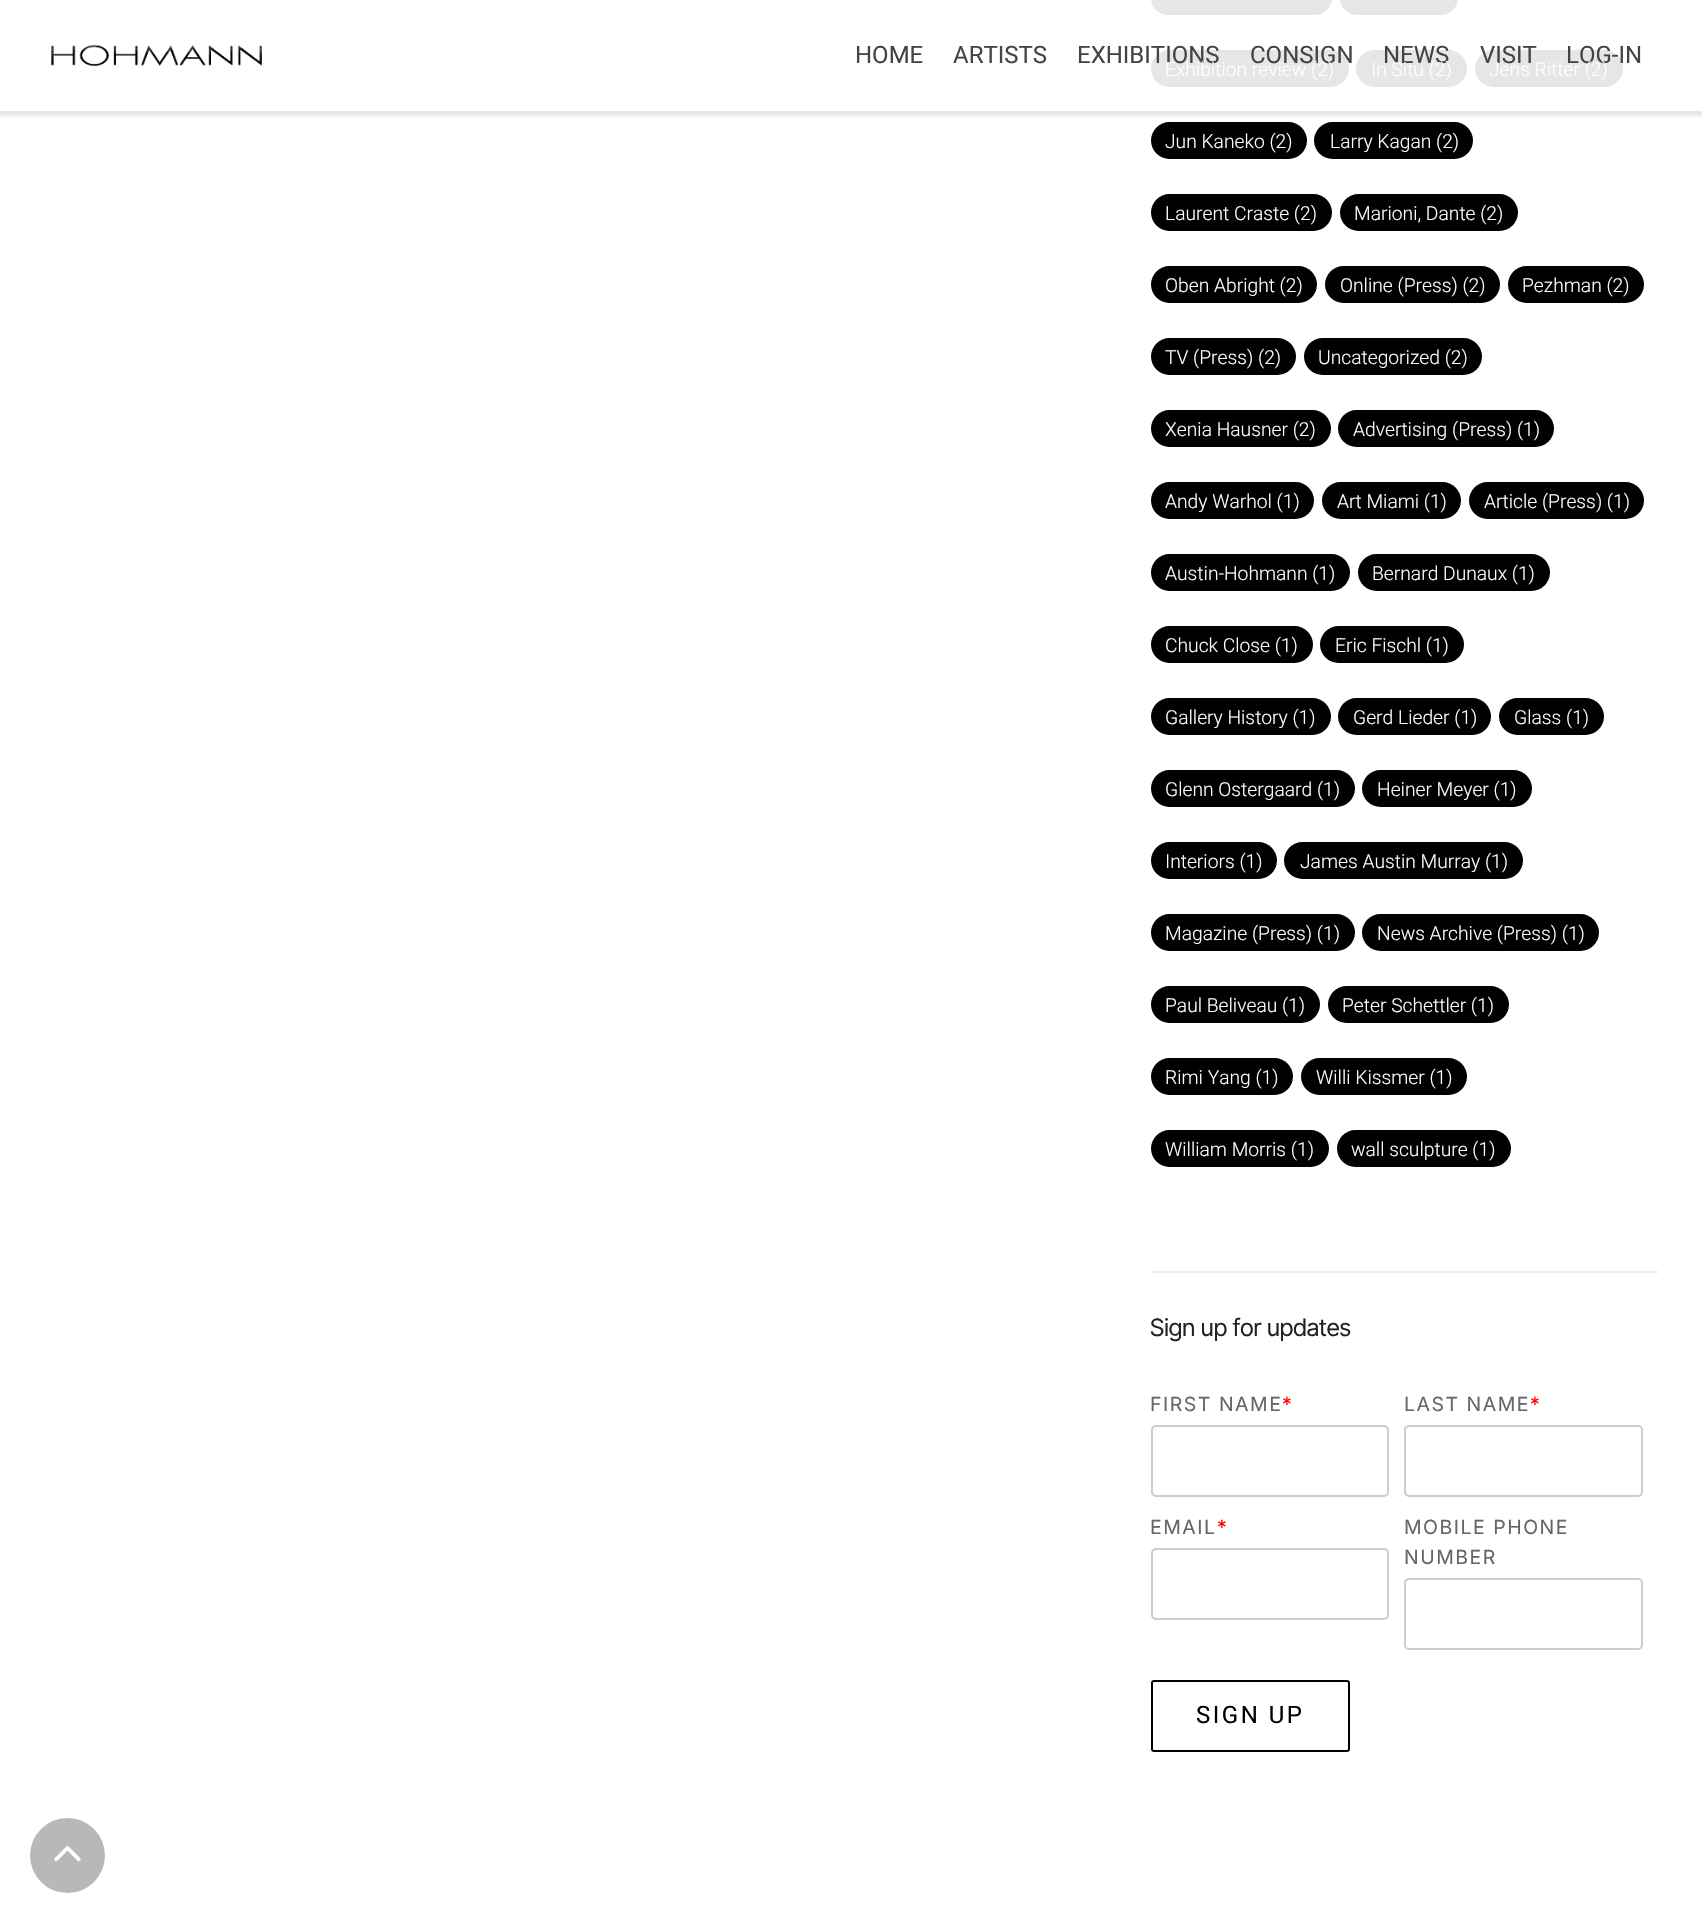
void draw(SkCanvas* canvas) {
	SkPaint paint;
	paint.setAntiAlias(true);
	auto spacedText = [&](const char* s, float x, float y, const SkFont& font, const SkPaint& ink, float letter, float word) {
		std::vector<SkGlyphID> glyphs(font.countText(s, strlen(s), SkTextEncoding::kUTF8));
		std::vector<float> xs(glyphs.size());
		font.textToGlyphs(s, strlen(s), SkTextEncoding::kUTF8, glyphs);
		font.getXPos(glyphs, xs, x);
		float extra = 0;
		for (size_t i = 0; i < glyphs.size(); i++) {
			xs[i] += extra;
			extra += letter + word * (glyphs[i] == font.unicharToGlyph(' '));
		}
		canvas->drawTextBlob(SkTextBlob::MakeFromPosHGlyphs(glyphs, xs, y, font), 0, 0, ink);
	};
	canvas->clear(0xffffffff);
	paint.setColor(0xffe6e6e6);
	canvas->drawRoundRect(SkRect::MakeXYWH(1151, -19, 181, 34), 18.5, 18.5, paint);
	canvas->drawRoundRect(SkRect::MakeXYWH(1340, -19, 118, 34), 18.5, 18.5, paint);
	canvas->drawRoundRect(SkRect::MakeXYWH(1151, 50, 198, 37), 18.5, 18.5, paint);
	canvas->drawRoundRect(SkRect::MakeXYWH(1356, 50, 111, 37), 18.5, 18.5, paint);
	canvas->drawRoundRect(SkRect::MakeXYWH(1475, 50, 148, 37), 18.5, 18.5, paint);
	paint.setColor(0xff000000);
	canvas->drawRoundRect(SkRect::MakeXYWH(1151, 122, 156, 37), 18.5, 18.5, paint);
	canvas->drawRoundRect(SkRect::MakeXYWH(1314, 122, 159, 37), 18.5, 18.5, paint);
	canvas->save();
	canvas->clipRect(SkRect::MakeXYWH(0, 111, 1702, 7));
	paint.setColor(0x1a000000);
	paint.setMaskFilter(SkMaskFilter::MakeBlur(kNormal_SkBlurStyle, 2));
	canvas->drawRect(SkRect::MakeXYWH(-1, 2, 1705, 114), paint);
	paint.setMaskFilter(nullptr);
	canvas->restore();
	canvas->drawImageRect(SkImages::DeferredFromEncodedData(SkData::MakeFromFileName("img1.png")), SkRect::MakeXYWH(51, 44, 211, 23), SkSamplingOptions());
	SkFont f1(fontMgr->matchFamilyStyle("Roboto", SkFontStyle::Normal()), 24);
	f1.setSubpixel(true);
	paint.setColor(0xff444444);
	canvas->drawString("HOME", 855, 63, f1, paint);
	canvas->drawString("ARTISTS", 953, 63, f1, paint);
	canvas->drawString("EXHIBITIONS", 1077, 63, f1, paint);
	canvas->drawString("CONSIGN", 1250, 63, f1, paint);
	canvas->drawString("NEWS", 1383, 63, f1, paint);
	canvas->drawString("VISIT", 1480, 63, f1, paint);
	canvas->drawString("LOG-IN", 1566, 63, f1, paint);
	paint.setColor(0xffeeeeee);
	canvas->drawRect(SkRect::MakeXYWH(1151, 1271, 507, 2), paint);
	SkFont f2(fontMgr->matchFamilyStyle("Roboto", SkFontStyle(300, SkFontStyle::kNormal_Width, SkFontStyle::kUpright_Slant)), 19.25);
	f2.setSubpixel(true);
	paint.setColor(0xffffffff);
	canvas->drawString("Exhibition review (2)", 1165, 76, f2, paint);
	canvas->drawString("In Situ (2)", 1371, 76, f2, paint);
	canvas->drawString("Jens Ritter (2)", 1489, 76, f2, paint);
	canvas->drawString("Jun Kaneko (2)", 1165, 148, f2, paint);
	canvas->drawString("Larry Kagan (2)", 1330, 148, f2, paint);
	paint.setColor(0xff000000);
	canvas->drawRoundRect(SkRect::MakeXYWH(1151, 194, 181, 37), 18.5, 18.5, paint);
	paint.setColor(0xffffffff);
	canvas->drawString("Laurent Craste (2)", 1165, 220, f2, paint);
	paint.setColor(0xff000000);
	canvas->drawRoundRect(SkRect::MakeXYWH(1340, 194, 178, 37), 18.5, 18.5, paint);
	paint.setColor(0xffffffff);
	canvas->drawString("Marioni, Dante (2)", 1354, 220, f2, paint);
	paint.setColor(0xff000000);
	canvas->drawRoundRect(SkRect::MakeXYWH(1151, 266, 166, 37), 18.5, 18.5, paint);
	paint.setColor(0xffffffff);
	canvas->drawString("Oben Abright (2)", 1165, 292, f2, paint);
	paint.setColor(0xff000000);
	canvas->drawRoundRect(SkRect::MakeXYWH(1325, 266, 175, 37), 18.5, 18.5, paint);
	paint.setColor(0xffffffff);
	canvas->drawString("Online (Press) (2)", 1340, 292, f2, paint);
	paint.setColor(0xff000000);
	canvas->drawRoundRect(SkRect::MakeXYWH(1508, 266, 136, 37), 18.5, 18.5, paint);
	paint.setColor(0xffffffff);
	canvas->drawString("Pezhman (2)", 1522, 292, f2, paint);
	paint.setColor(0xff000000);
	canvas->drawRoundRect(SkRect::MakeXYWH(1151, 338, 145, 37), 18.5, 18.5, paint);
	paint.setColor(0xffffffff);
	canvas->drawString("TV (Press) (2)", 1165, 364, f2, paint);
	paint.setColor(0xff000000);
	canvas->drawRoundRect(SkRect::MakeXYWH(1304, 338, 178, 37), 18.5, 18.5, paint);
	paint.setColor(0xffffffff);
	canvas->drawString("Uncategorized (2)", 1318, 364, f2, paint);
	paint.setColor(0xff000000);
	canvas->drawRoundRect(SkRect::MakeXYWH(1151, 410, 180, 37), 18.5, 18.5, paint);
	paint.setColor(0xffffffff);
	canvas->drawString("Xenia Hausner (2)", 1165, 436, f2, paint);
	paint.setColor(0xff000000);
	canvas->drawRoundRect(SkRect::MakeXYWH(1338, 410, 216, 37), 18.5, 18.5, paint);
	paint.setColor(0xffffffff);
	canvas->drawString("Advertising (Press) (1)", 1353, 436, f2, paint);
	paint.setColor(0xff000000);
	canvas->drawRoundRect(SkRect::MakeXYWH(1151, 482, 163, 37), 18.5, 18.5, paint);
	paint.setColor(0xffffffff);
	canvas->drawString("Andy Warhol (1)", 1165, 508, f2, paint);
	paint.setColor(0xff000000);
	canvas->drawRoundRect(SkRect::MakeXYWH(1322, 482, 139, 37), 18.5, 18.5, paint);
	paint.setColor(0xffffffff);
	canvas->drawString("Art Miami (1)", 1337, 508, f2, paint);
	paint.setColor(0xff000000);
	canvas->drawRoundRect(SkRect::MakeXYWH(1469, 482, 175, 37), 18.5, 18.5, paint);
	paint.setColor(0xffffffff);
	canvas->drawString("Article (Press) (1)", 1484, 508, f2, paint);
	paint.setColor(0xff000000);
	canvas->drawRoundRect(SkRect::MakeXYWH(1151, 554, 199, 37), 18.5, 18.5, paint);
	paint.setColor(0xffffffff);
	canvas->drawString("Austin-Hohmann (1)", 1165, 580, f2, paint);
	paint.setColor(0xff000000);
	canvas->drawRoundRect(SkRect::MakeXYWH(1358, 554, 192, 37), 18.5, 18.5, paint);
	paint.setColor(0xffffffff);
	canvas->drawString("Bernard Dunaux (1)", 1372, 580, f2, paint);
	paint.setColor(0xff000000);
	canvas->drawRoundRect(SkRect::MakeXYWH(1151, 626, 162, 37), 18.5, 18.5, paint);
	paint.setColor(0xffffffff);
	canvas->drawString("Chuck Close (1)", 1165, 652, f2, paint);
	paint.setColor(0xff000000);
	canvas->drawRoundRect(SkRect::MakeXYWH(1320, 626, 144, 37), 18.5, 18.5, paint);
	paint.setColor(0xffffffff);
	canvas->drawString("Eric Fischl (1)", 1335, 652, f2, paint);
	paint.setColor(0xff000000);
	canvas->drawRoundRect(SkRect::MakeXYWH(1151, 698, 180, 37), 18.5, 18.5, paint);
	paint.setColor(0xffffffff);
	canvas->drawString("Gallery History (1)", 1165, 724, f2, paint);
	paint.setColor(0xff000000);
	canvas->drawRoundRect(SkRect::MakeXYWH(1338, 698, 153, 37), 18.5, 18.5, paint);
	paint.setColor(0xffffffff);
	canvas->drawString("Gerd Lieder (1)", 1353, 724, f2, paint);
	paint.setColor(0xff000000);
	canvas->drawRoundRect(SkRect::MakeXYWH(1499, 698, 105, 37), 18.5, 18.5, paint);
	paint.setColor(0xffffffff);
	canvas->drawString("Glass (1)", 1514, 724, f2, paint);
	paint.setColor(0xff000000);
	canvas->drawRoundRect(SkRect::MakeXYWH(1151, 770, 204, 37), 18.5, 18.5, paint);
	paint.setColor(0xffffffff);
	canvas->drawString("Glenn Ostergaard (1)", 1165, 796, f2, paint);
	paint.setColor(0xff000000);
	canvas->drawRoundRect(SkRect::MakeXYWH(1362, 770, 170, 37), 18.5, 18.5, paint);
	paint.setColor(0xffffffff);
	canvas->drawString("Heiner Meyer (1)", 1377, 796, f2, paint);
	paint.setColor(0xff000000);
	canvas->drawRoundRect(SkRect::MakeXYWH(1151, 842, 126, 37), 18.5, 18.5, paint);
	paint.setColor(0xffffffff);
	canvas->drawString("Interiors (1)", 1165, 868, f2, paint);
	paint.setColor(0xff000000);
	canvas->drawRoundRect(SkRect::MakeXYWH(1284, 842, 239, 37), 18.5, 18.5, paint);
	paint.setColor(0xffffffff);
	canvas->drawString("James Austin Murray (1)", 1300, 868, f2, paint);
	paint.setColor(0xff000000);
	canvas->drawRoundRect(SkRect::MakeXYWH(1151, 914, 204, 37), 18.5, 18.5, paint);
	paint.setColor(0xffffffff);
	canvas->drawString("Magazine (Press) (1)", 1165, 940, f2, paint);
	paint.setColor(0xff000000);
	canvas->drawRoundRect(SkRect::MakeXYWH(1362, 914, 237, 37), 18.5, 18.5, paint);
	paint.setColor(0xffffffff);
	canvas->drawString("News Archive (Press) (1)", 1377, 940, f2, paint);
	paint.setColor(0xff000000);
	canvas->drawRoundRect(SkRect::MakeXYWH(1151, 986, 169, 37), 18.5, 18.5, paint);
	paint.setColor(0xffffffff);
	canvas->drawString("Paul Beliveau (1)", 1165, 1012, f2, paint);
	paint.setColor(0xff000000);
	canvas->drawRoundRect(SkRect::MakeXYWH(1328, 986, 181, 37), 18.5, 18.5, paint);
	paint.setColor(0xffffffff);
	canvas->drawString("Peter Schettler (1)", 1342, 1012, f2, paint);
	paint.setColor(0xff000000);
	canvas->drawRoundRect(SkRect::MakeXYWH(1151, 1058, 142, 37), 18.5, 18.5, paint);
	paint.setColor(0xffffffff);
	canvas->drawString("Rimi Yang (1)", 1165, 1084, f2, paint);
	paint.setColor(0xff000000);
	canvas->drawRoundRect(SkRect::MakeXYWH(1301, 1058, 166, 37), 18.5, 18.5, paint);
	paint.setColor(0xffffffff);
	canvas->drawString("Willi Kissmer (1)", 1316, 1084, f2, paint);
	paint.setColor(0xff000000);
	canvas->drawRoundRect(SkRect::MakeXYWH(1151, 1130, 178, 37), 18.5, 18.5, paint);
	paint.setColor(0xffffffff);
	canvas->drawString("William Morris (1)", 1165, 1156, f2, paint);
	paint.setColor(0xff000000);
	canvas->drawRoundRect(SkRect::MakeXYWH(1337, 1130, 174, 37), 18.5, 18.5, paint);
	paint.setColor(0xffffffff);
	canvas->drawString("wall sculpture (1)", 1351, 1156, f2, paint);
	SkFont f3(fontMgr->matchFamilyStyle("Inter Tight", SkFontStyle::Normal()), 24);
	f3.setSubpixel(true);
	paint.setColor(0xff222222);
	canvas->drawString("Sign up for updates", 1150, 1336, f3, paint);
	SkFont f4(fontMgr->matchFamilyStyle("Inter", SkFontStyle::Normal()), 19.5);
	f4.setSubpixel(true);
	paint.setColor(0xff666666);
	spacedText("FIRST NAME", 1150, 1411, f4, paint, 1.5, 0);
	paint.setColor(0xffff0000);
	spacedText("*", 1282, 1411, f4, paint, 1.5, 0);
	paint.setStroke(true);
	paint.setStrokeWidth(2);
	paint.setColor(0xffcccccc);
	canvas->drawRoundRect(SkRect::MakeXYWH(1152, 1426, 236, 70), 4, 4, paint);
	paint.setStroke(false);
	paint.setColor(0xff666666);
	spacedText("LAST NAME", 1404, 1411, f4, paint, 1.5, 0);
	paint.setColor(0xffff0000);
	spacedText("*", 1530, 1411, f4, paint, 1.5, 0);
	paint.setStroke(true);
	paint.setColor(0xffcccccc);
	canvas->drawRoundRect(SkRect::MakeXYWH(1405, 1426, 237, 70), 4, 4, paint);
	paint.setStroke(false);
	paint.setColor(0xff666666);
	spacedText("EMAIL", 1150, 1534, f4, paint, 1.5, 0);
	paint.setColor(0xffff0000);
	spacedText("*", 1217, 1534, f4, paint, 1.5, 0);
	paint.setStroke(true);
	paint.setColor(0xffcccccc);
	canvas->drawRoundRect(SkRect::MakeXYWH(1152, 1549, 236, 70), 4, 4, paint);
	paint.setStroke(false);
	paint.setColor(0xff666666);
	spacedText("MOBILE PHONE", 1404, 1534, f4, paint, 1.5, 0);
	spacedText("NUMBER", 1404, 1564, f4, paint, 1.5, 0);
	paint.setStroke(true);
	paint.setColor(0xffcccccc);
	canvas->drawRoundRect(SkRect::MakeXYWH(1405, 1579, 237, 70), 4, 4, paint);
	paint.setColor(0xff000000);
	canvas->drawRoundRect(SkRect::MakeXYWH(1152, 1681, 197, 70), 2, 2, paint);
	paint.setStroke(false);
	spacedText("SIGN UP", 1196, 1723, f1, paint, 2.5, 0);
	paint.setColor(0xffb8b8b8);
	canvas->drawCircle(67.5, 1855.5, 37.5, paint);
	canvas->drawImageRect(SkImages::DeferredFromEncodedData(SkData::MakeFromFileName("img2.png")), SkRect::MakeXYWH(54, 1846, 27, 16), SkSamplingOptions());
}
